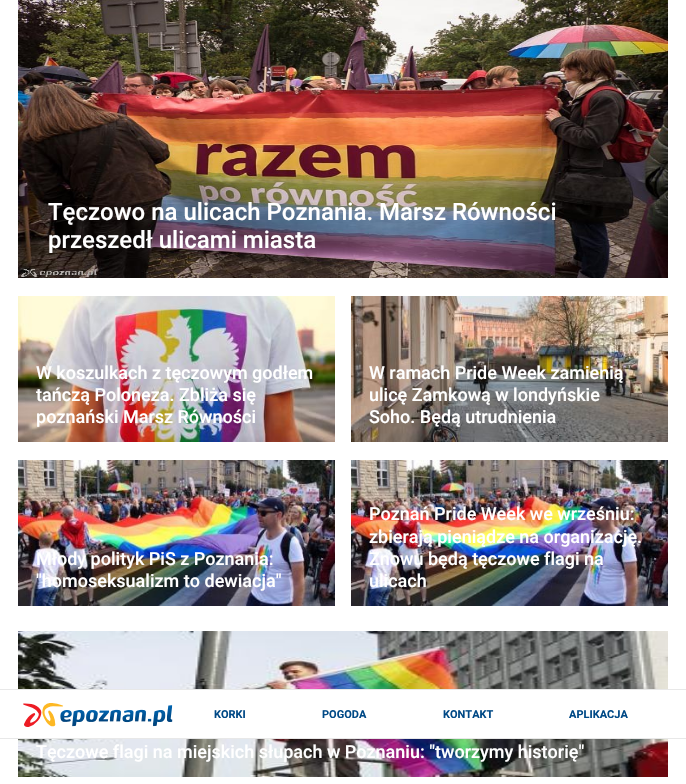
void draw(SkCanvas* canvas) {
	SkPaint paint;
	paint.setAntiAlias(true);
	canvas->clear(0xffffffff);
	canvas->drawImageRect(SkImages::DeferredFromEncodedData(SkData::MakeFromFileName("img1.png")), SkRect::MakeXYWH(18, 0, 650, 278), SkSamplingOptions());
	SkFont f1(fontMgr->matchFamilyStyle("Roboto", SkFontStyle(500, SkFontStyle::kNormal_Width, SkFontStyle::kUpright_Slant)), 24);
	f1.setSubpixel(true);
	paint.setColor(0xffffffff);
	canvas->drawString("Tęczowo na ulicach Poznania. Marsz Równości", 48, 220, f1, paint);
	canvas->drawString("przeszedł ulicami miasta", 48, 248, f1, paint);
	canvas->drawImageRect(SkImages::DeferredFromEncodedData(SkData::MakeFromFileName("img2.png")), SkRect::MakeXYWH(18, 296, 317, 146), SkSamplingOptions());
	SkFont f2(fontMgr->matchFamilyStyle("Roboto", SkFontStyle(500, SkFontStyle::kNormal_Width, SkFontStyle::kUpright_Slant)), 18);
	f2.setSubpixel(true);
	canvas->drawString("W koszulkach z tęczowym godłem", 36, 379, f2, paint);
	canvas->drawString("tańczą Poloneza. Zbliża się", 36, 401, f2, paint);
	canvas->drawString("poznański Marsz Równości", 36, 423, f2, paint);
	canvas->drawImageRect(SkImages::DeferredFromEncodedData(SkData::MakeFromFileName("img3.png")), SkRect::MakeXYWH(351, 296, 317, 146), SkSamplingOptions());
	canvas->drawString("W ramach Pride Week zamienią", 369, 379, f2, paint);
	canvas->drawString("ulicę Zamkową w londyńskie", 369, 401, f2, paint);
	canvas->drawString("Soho. Będą utrudnienia", 369, 423, f2, paint);
	canvas->drawImageRect(SkImages::DeferredFromEncodedData(SkData::MakeFromFileName("img4.png")), SkRect::MakeXYWH(18, 460, 317, 146), SkSamplingOptions());
	canvas->drawString("Młody polityk PiS z Poznania:", 36, 565, f2, paint);
	canvas->drawString("\"homoseksualizm to dewiacja\"", 36, 587, f2, paint);
	canvas->drawImageRect(SkImages::DeferredFromEncodedData(SkData::MakeFromFileName("img5.png")), SkRect::MakeXYWH(351, 460, 317, 146), SkSamplingOptions());
	canvas->drawString("Poznań Pride Week we wrześniu:", 369, 520, f2, paint);
	canvas->drawString("zbierają pieniądze na organizację.", 369, 543, f2, paint);
	canvas->drawString("Znowu będą tęczowe flagi na", 369, 565, f2, paint);
	canvas->drawString("ulicach", 369, 587, f2, paint);
	canvas->drawImageRect(SkImages::DeferredFromEncodedData(SkData::MakeFromFileName("img6.png")), SkRect::MakeXYWH(18, 631, 650, 146), SkSamplingOptions());
	canvas->drawString("Tęczowe flagi na miejskich słupach w Poznaniu: \"tworzymy historię\"", 36, 758, f2, paint);
	canvas->drawRect(SkRect::MakeXYWH(18, 690, 650, 48), paint);
	paint.setColor(0xffe8e8e8);
	canvas->drawRect(SkRect::MakeXYWH(0, 689, 686, 1), paint);
	canvas->drawRect(SkRect::MakeXYWH(0, 738, 686, 1), paint);
	canvas->drawImageRect(SkImages::DeferredFromEncodedData(SkData::MakeFromFileName("img7.png")), SkRect::MakeXYWH(23, 703, 150, 24), SkSamplingOptions());
	SkFont f3(fontMgr->matchFamilyStyle("Roboto", SkFontStyle::Bold()), 11);
	f3.setSubpixel(true);
	paint.setColor(0xff004986);
	canvas->drawString("KORKI", 214, 718, f3, paint);
	canvas->drawString("POGODA", 322, 718, f3, paint);
	canvas->drawString("KONTAKT", 443, 718, f3, paint);
	canvas->drawString("APLIKACJA", 569, 718, f3, paint);
}
